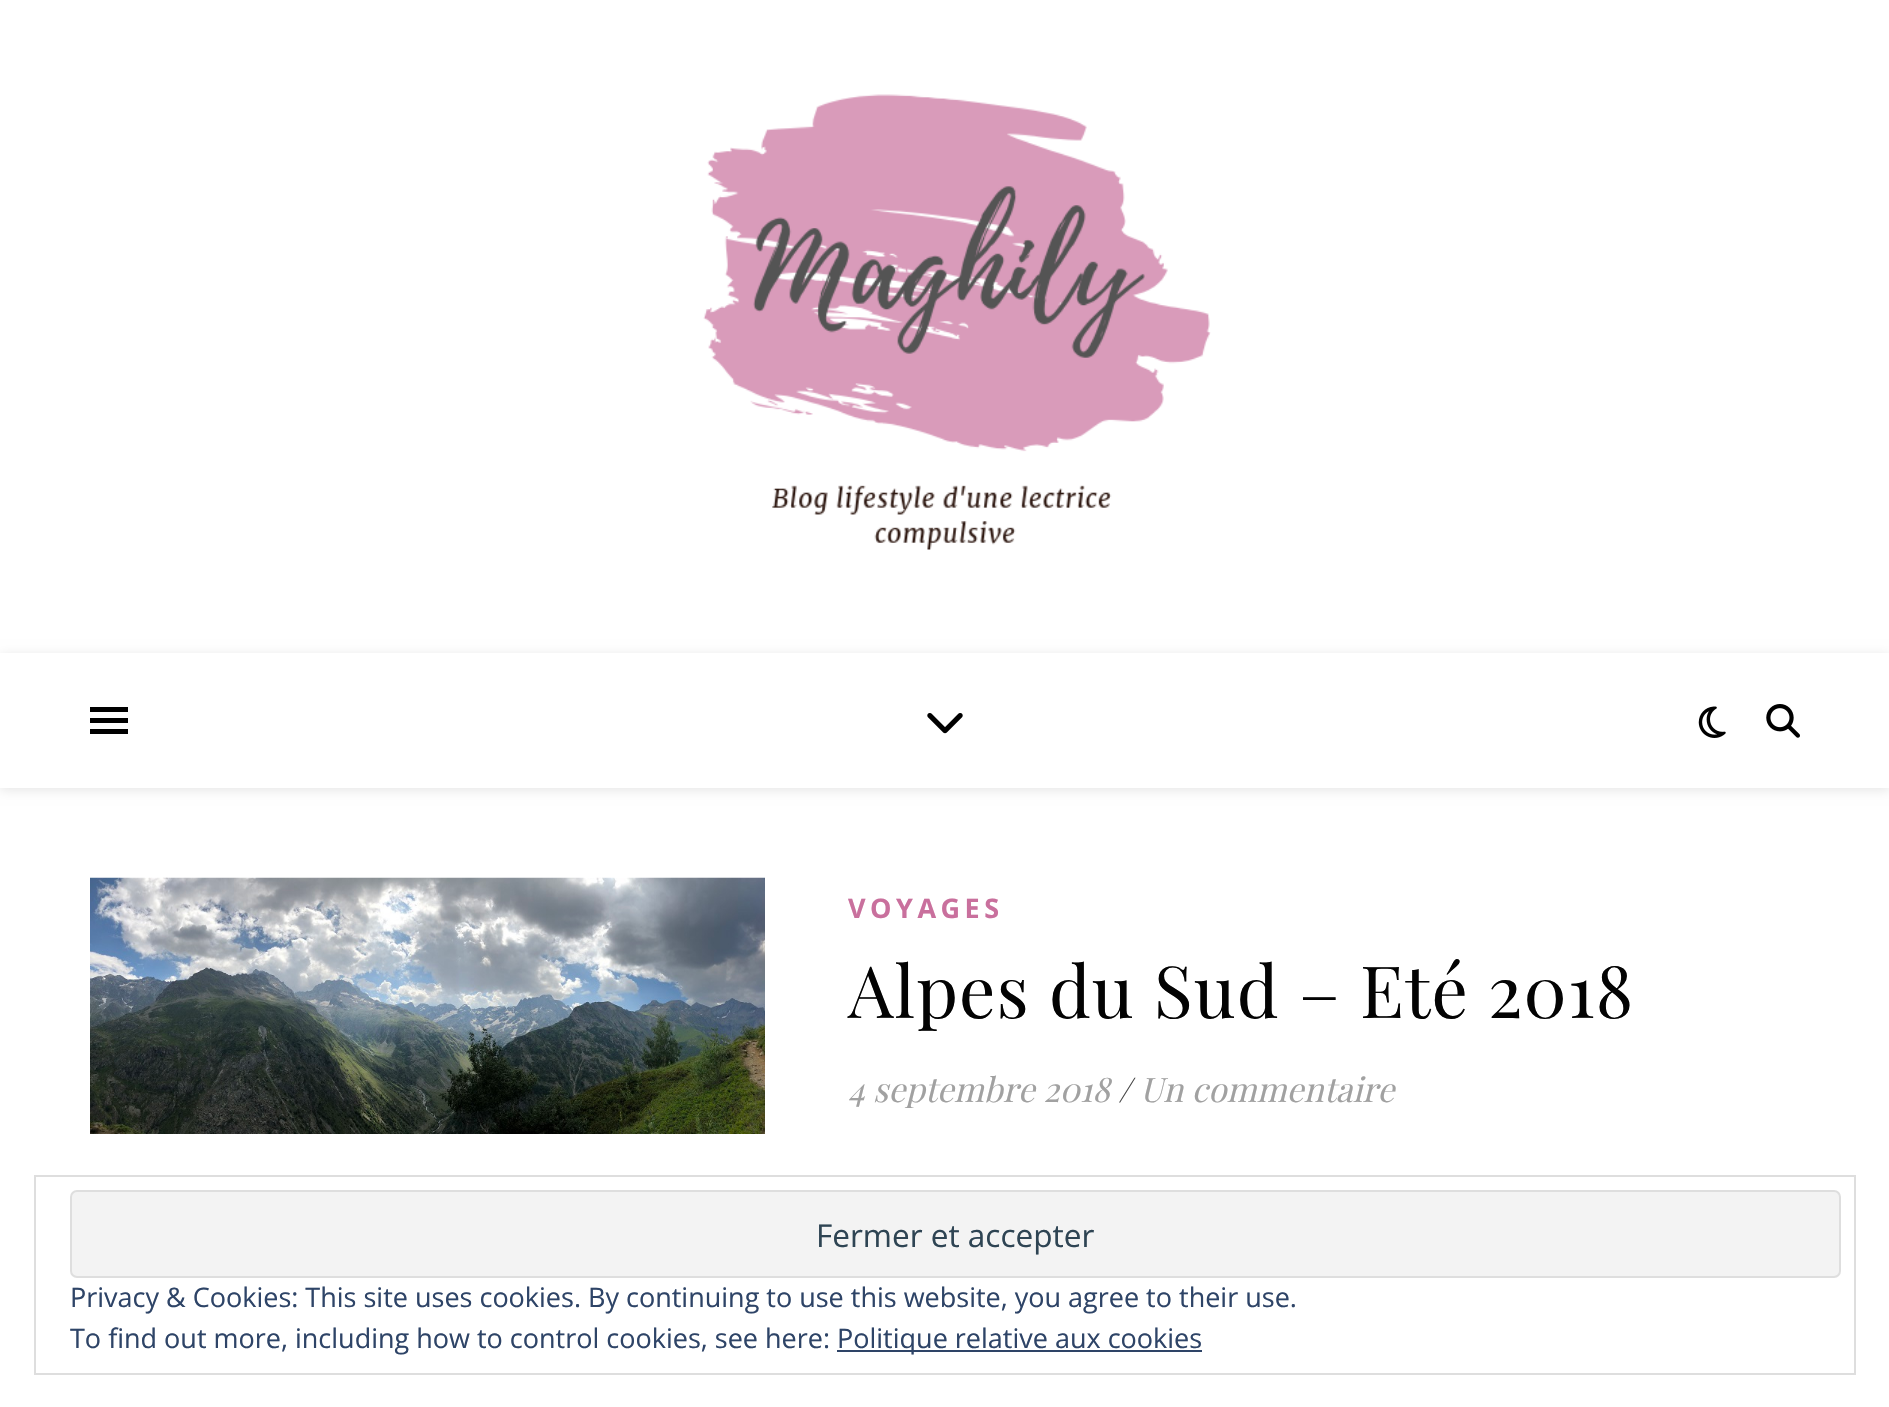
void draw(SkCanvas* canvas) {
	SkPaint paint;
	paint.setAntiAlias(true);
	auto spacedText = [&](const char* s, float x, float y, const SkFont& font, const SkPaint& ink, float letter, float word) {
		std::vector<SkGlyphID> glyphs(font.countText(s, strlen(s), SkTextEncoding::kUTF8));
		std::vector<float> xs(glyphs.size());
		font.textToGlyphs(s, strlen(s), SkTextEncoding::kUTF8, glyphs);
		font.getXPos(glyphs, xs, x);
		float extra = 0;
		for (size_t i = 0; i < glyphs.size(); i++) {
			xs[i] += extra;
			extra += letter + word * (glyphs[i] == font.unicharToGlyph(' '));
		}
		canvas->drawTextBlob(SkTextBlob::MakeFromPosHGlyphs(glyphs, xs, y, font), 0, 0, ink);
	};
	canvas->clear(0xffffffff);
	canvas->drawImageRect(SkImages::DeferredFromEncodedData(SkData::MakeFromFileName("img1.png")), SkRect::MakeXYWH(703, 94, 508, 456), SkSamplingOptions());
	paint.setColor(0x1a000000);
	paint.setMaskFilter(SkMaskFilter::MakeBlur(kNormal_SkBlurStyle, 5.5));
	canvas->drawRect(SkRect::MakeXYWH(0, 655, 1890, 135), paint);
	paint.setMaskFilter(nullptr);
	paint.setColor(0xffffffff);
	canvas->drawRect(SkRect::MakeXYWH(0, 653, 1889, 135), paint);
	paint.setColor(0xff000000);
	canvas->drawRect(SkRect::MakeXYWH(90, 707, 38, 5), paint);
	canvas->drawRect(SkRect::MakeXYWH(90, 718, 38, 5), paint);
	canvas->drawRect(SkRect::MakeXYWH(90, 729, 38, 5), paint);
	canvas->drawImageRect(SkImages::DeferredFromEncodedData(SkData::MakeFromFileName("img2.png")), SkRect::MakeXYWH(927, 713, 36, 21), SkSamplingOptions());
	canvas->drawImageRect(SkImages::DeferredFromEncodedData(SkData::MakeFromFileName("img3.png")), SkRect::MakeXYWH(1698, 706, 28, 32), SkSamplingOptions());
	canvas->drawImageRect(SkImages::DeferredFromEncodedData(SkData::MakeFromFileName("img4.png")), SkRect::MakeXYWH(1766, 704, 34, 34), SkSamplingOptions());
	canvas->drawImageRect(SkImages::DeferredFromEncodedData(SkData::MakeFromFileName("img5.png")), SkRect::MakeXYWH(90, 877, 675, 257), SkSamplingOptions());
	SkFont f1(fontMgr->matchFamilyStyle("Open Sans", SkFontStyle::Bold()), 27);
	f1.setSubpixel(true);
	paint.setColor(0xffc9709d);
	spacedText("VOYAGES", 848, 918, f1, paint, 4.5, 0);
	SkFont f2(fontMgr->matchFamilyStyle("Playfair Display", SkFontStyle::Normal()), 72);
	f2.setSubpixel(true);
	paint.setColor(0xff030303);
	spacedText("Alpes du Sud – Eté 2018", 848, 1018, f2, paint, 1.1, 0);
	SkFont f3(fontMgr->matchFamilyStyle("Playfair Display", SkFontStyle::Italic()), 33.75);
	f3.setSubpixel(true);
	paint.setColor(0xffa1a1a1);
	canvas->drawString("4 septembre 2018", 848, 1102, f3, paint);
	paint.setColor(0xff464646);
	canvas->drawString("/", 1118, 1102, f3, paint);
	paint.setColor(0xffa1a1a1);
	canvas->drawString("Un commentaire", 1140, 1102, f3, paint);
	paint.setStroke(true);
	paint.setStrokeWidth(2);
	paint.setColor(0xffdedede);
	canvas->drawRect(SkRect::MakeXYWH(35, 1176, 1820, 198), paint);
	paint.setStroke(false);
	paint.setColor(0xfff3f3f3);
	canvas->drawRoundRect(SkRect::MakeXYWH(71, 1191, 1769, 86), 6, 6, paint);
	paint.setStroke(true);
	paint.setColor(0xffdedede);
	canvas->drawRoundRect(SkRect::MakeXYWH(71, 1191, 1769, 86), 6, 6, paint);
	SkFont f4(fontMgr->matchFamilyStyle("Open Sans", SkFontStyle::Normal()), 31.5);
	f4.setSubpixel(true);
	paint.setStroke(false);
	paint.setColor(0xff2e4453);
	canvas->drawString("Fermer et accepter", 816, 1247, f4, paint);
	SkFont f5(fontMgr->matchFamilyStyle("Open Sans", SkFontStyle::Normal()), 27);
	f5.setSubpixel(true);
	paint.setColor(0xff2e4467);
	canvas->drawString("Privacy & Cookies: This site uses cookies. By continuing to use this website, you agree to their use.", 70, 1307, f5, paint);
	canvas->drawString("To find out more, including how to control cookies, see here:", 70, 1348, f5, paint);
	canvas->drawRect(SkRect::MakeXYWH(837, 1350, 365, 2), paint);
	canvas->drawString("Politique relative aux cookies", 837, 1348, f5, paint);
}
